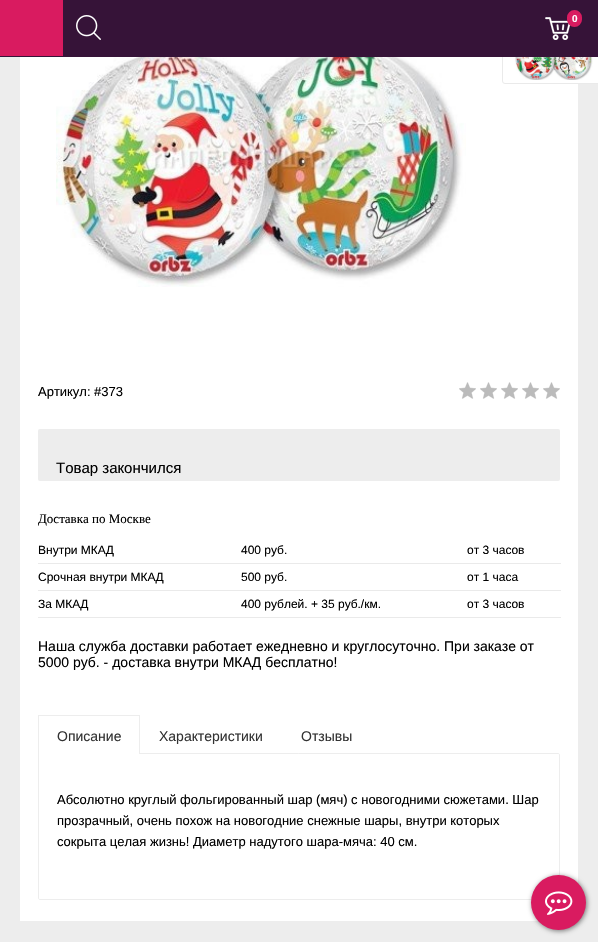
void draw(SkCanvas* canvas) {
	SkPaint paint;
	paint.setAntiAlias(true);
	auto svgPath = [&](const char* data, bool evenOdd = false) {
		SkPath result = *SkParsePath::FromSVGString(data);
		if (evenOdd) result.setFillType(SkPathFillType::kEvenOdd);
		return result;
	};
	canvas->clear(0xffededed);
	paint.setColor(0xffffffff);
	canvas->drawRect(SkRect::MakeXYWH(20, 57, 558, 864), paint);
	canvas->drawRoundRect(SkRect::MakeXYWH(502.5, -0.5, 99, 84), 2.5, 2.5, paint);
	paint.setStroke(true);
	paint.setStrokeWidth(1);
	paint.setColor(0xffeaeaea);
	canvas->drawRoundRect(SkRect::MakeXYWH(502.5, -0.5, 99, 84), 2.5, 2.5, paint);
	paint.setStroke(false);
	paint.setColor(0xff361338);
	canvas->drawRect(SkRect::MakeXYWH(0, 0, 598, 57), paint);
	paint.setColor(0xffd91b60);
	canvas->drawRect(SkRect::MakeXYWH(0, 0, 63, 56), paint);
	canvas->drawImageRect(SkImages::DeferredFromEncodedData(SkData::MakeFromFileName("img1.png")), SkRect::MakeXYWH(76, 15, 25, 25), SkSamplingOptions());
	canvas->drawImageRect(SkImages::DeferredFromEncodedData(SkData::MakeFromFileName("img2.png")), SkRect::MakeXYWH(545, 17, 26, 23), SkSamplingOptions());
	canvas->drawRoundRect(SkRect::MakeXYWH(568, 11, 13, 15), 6.5, 6.5, paint);
	paint.setStroke(true);
	paint.setStrokeWidth(2);
	canvas->drawRoundRect(SkRect::MakeXYWH(568, 11, 13, 15), 6.5, 6.5, paint);
	SkFont f1(fontMgr->matchFamilyStyle("Liberation Sans", SkFontStyle::Bold()), 10);
	f1.setSubpixel(true);
	paint.setStroke(false);
	paint.setColor(0xffffffff);
	canvas->drawString("0", 572, 22, f1, paint);
	canvas->drawImageRect(SkImages::DeferredFromEncodedData(SkData::MakeFromFileName("img3.png")), SkRect::MakeXYWH(513, 57, 80, 23), SkSamplingOptions());
	canvas->drawImageRect(SkImages::DeferredFromEncodedData(SkData::MakeFromFileName("img4.png")), SkRect::MakeXYWH(56, 57, 410, 230), SkSamplingOptions());
	SkFont f2(fontMgr->matchFamilyStyle("Liberation Sans", SkFontStyle::Normal()), 13);
	f2.setSubpixel(true);
	paint.setColor(0xff000000);
	canvas->drawString("Артикул: #373", 38, 396, f2, paint);
	canvas->drawImageRect(SkImages::DeferredFromEncodedData(SkData::MakeFromFileName("img5.png")), SkRect::MakeXYWH(459, 382, 101, 17), SkSamplingOptions());
	paint.setColor(0xffededed);
	canvas->drawRoundRect(SkRect::MakeXYWH(38, 429, 522, 52), 2, 2, paint);
	SkFont f3(fontMgr->matchFamilyStyle("Liberation Sans", SkFontStyle::Normal()), 15);
	f3.setSubpixel(true);
	paint.setColor(0xff000000);
	canvas->drawString("Товар закончился", 56, 473, f3, paint);
	SkFont f4(fontMgr->matchFamilyStyle("Liberation Serif", SkFontStyle::Normal()), 13);
	f4.setSubpixel(true);
	canvas->drawString("Доставка по Москве", 38, 523, f4, paint);
	SkFont f5(fontMgr->matchFamilyStyle("Liberation Sans", SkFontStyle::Normal()), 12);
	f5.setSubpixel(true);
	canvas->drawString("Внутри МКАД", 38, 554, f5, paint);
	canvas->drawString("400 руб.", 241, 554, f5, paint);
	paint.setColor(0xffeaeaea);
	canvas->drawRect(SkRect::MakeXYWH(38, 563, 523, 1), paint);
	paint.setColor(0xff000000);
	canvas->drawString("от 3 часов", 467, 554, f5, paint);
	canvas->drawString("Срочная внутри МКАД", 38, 581, f5, paint);
	canvas->drawString("500 руб.", 241, 581, f5, paint);
	paint.setColor(0xffeaeaea);
	canvas->drawRect(SkRect::MakeXYWH(38, 590, 523, 1), paint);
	paint.setColor(0xff000000);
	canvas->drawString("от 1 часа", 467, 581, f5, paint);
	canvas->drawString("За МКАД", 38, 608, f5, paint);
	canvas->drawString("400 рублей. + 35 руб./км.", 241, 608, f5, paint);
	paint.setColor(0xffeaeaea);
	canvas->drawRect(SkRect::MakeXYWH(38, 617, 523, 1), paint);
	paint.setColor(0xff000000);
	canvas->drawString("от 3 часов", 467, 608, f5, paint);
	SkFont f6(fontMgr->matchFamilyStyle("Liberation Sans", SkFontStyle::Normal()), 14);
	f6.setSubpixel(true);
	canvas->drawString("Наша служба доставки работает ежедневно и круглосуточно. При заказе от", 38, 651, f6, paint);
	canvas->drawString("5000 руб. - доставка внутри МКАД бесплатно!", 38, 667, f6, paint);
	paint.setColor(0xffededed);
	canvas->drawRect(SkRect::MakeXYWH(38, 715, 102, 1), paint);
	paint.setStroke(true);
	paint.setStrokeWidth(1);
	canvas->drawPath(svgPath("M38.5 753.5H558C559 753.5 559.5 754 559.5 755V898C559.5 899 559 899.5 558 899.5H40C39 899.5 38.5 899 38.5 898Z"), paint);
	paint.setStroke(false);
	canvas->drawRect(SkRect::MakeXYWH(139, 715, 1, 40), paint);
	paint.setColor(0xffffffff);
	canvas->drawRect(SkRect::MakeXYWH(38, 754, 102, 1), paint);
	paint.setColor(0xffededed);
	canvas->drawRect(SkRect::MakeXYWH(38, 715, 1, 40), paint);
	paint.setColor(0xffffffff);
	canvas->drawPath(svgPath("M44 716H134C137 716 139 718 139 721V754H39V721C39 718 41 716 44 716Z"), paint);
	paint.setColor(0xff333333);
	canvas->drawString("Описание", 57, 741, f6, paint);
	canvas->drawString("Характеристики", 159, 741, f6, paint);
	canvas->drawString("Отзывы", 301, 741, f6, paint);
	paint.setColor(0xff000000);
	canvas->drawString("Абсолютно круглый фольгированный шар (мяч) с новогодними сюжетами. Шар", 57, 804, f2, paint);
	canvas->drawString("прозрачный, очень похож на новогодние снежные шары, внутри которых", 57, 825, f2, paint);
	canvas->drawString("сокрыта целая жизнь! Диаметр надутого шара-мяча: 40 см.", 57, 846, f2, paint);
	paint.setColor(0xffffffff);
	canvas->drawRect(SkRect::MakeXYWH(0, 942, 598, 7), paint);
	paint.setColor(0x80000000);
	paint.setMaskFilter(SkMaskFilter::MakeBlur(kNormal_SkBlurStyle, 2.5));
	canvas->drawRoundRect(SkRect::MakeXYWH(532, 876, 55, 55), 27.5, 27.5, paint);
	paint.setMaskFilter(nullptr);
	paint.setColor(0xffd91b60);
	canvas->drawCircle(558.5, 902.5, 27.5, paint);
	canvas->drawImageRect(SkImages::DeferredFromEncodedData(SkData::MakeFromFileName("img6.png")), SkRect::MakeXYWH(545, 891, 28, 24), SkSamplingOptions());
}
